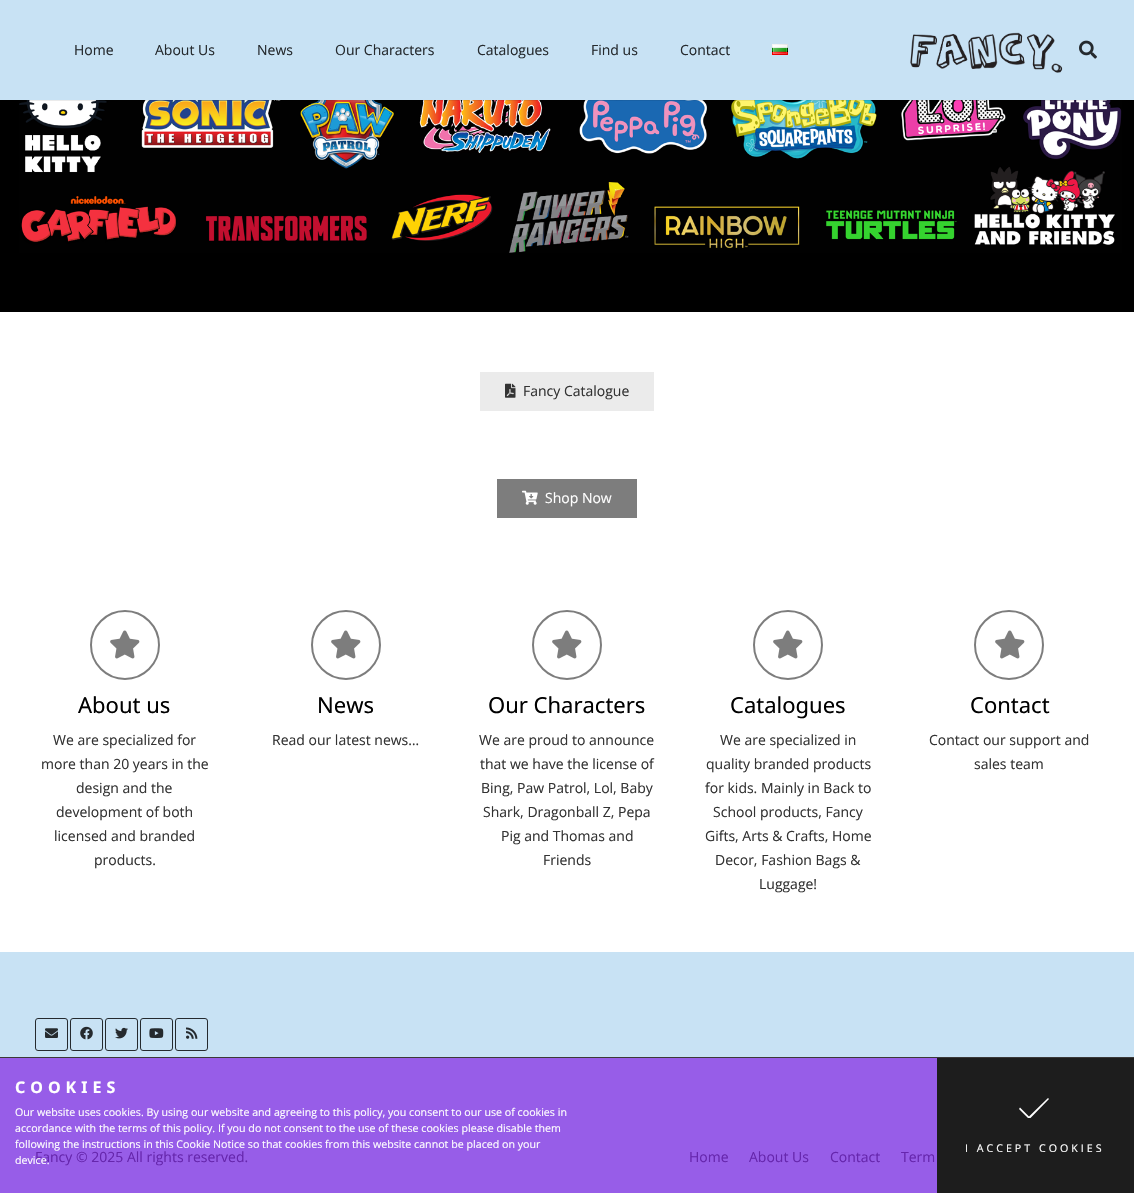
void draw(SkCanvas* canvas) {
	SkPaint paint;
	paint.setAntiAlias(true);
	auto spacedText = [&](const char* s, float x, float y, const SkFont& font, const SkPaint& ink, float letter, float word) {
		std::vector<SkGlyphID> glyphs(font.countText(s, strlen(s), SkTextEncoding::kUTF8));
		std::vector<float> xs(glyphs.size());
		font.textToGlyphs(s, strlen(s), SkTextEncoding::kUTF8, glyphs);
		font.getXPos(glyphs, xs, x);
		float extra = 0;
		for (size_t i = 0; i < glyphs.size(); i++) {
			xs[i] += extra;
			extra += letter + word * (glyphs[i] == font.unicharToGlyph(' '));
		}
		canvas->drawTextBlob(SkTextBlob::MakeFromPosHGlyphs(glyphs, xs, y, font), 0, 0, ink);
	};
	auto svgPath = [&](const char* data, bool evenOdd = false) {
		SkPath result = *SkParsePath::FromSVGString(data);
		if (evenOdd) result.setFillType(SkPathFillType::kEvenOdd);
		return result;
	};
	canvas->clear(0xffffffff);
	paint.setColor(0xff000000);
	canvas->drawRect(SkRect::MakeXYWH(0, 100, 1134, 212), paint);
	canvas->drawImageRect(SkImages::DeferredFromEncodedData(SkData::MakeFromFileName("img4.png")), SkRect::MakeXYWH(19, 100, 1103, 153), SkSamplingOptions());
	paint.setColor(0x14000000);
	canvas->drawRect(SkRect::MakeXYWH(27, 100, 1083, 1), paint);
	paint.setColor(0xffc8e2f4);
	canvas->drawRect(SkRect::MakeXYWH(0, 0, 1134, 100), paint);
	SkFont f1(fontMgr->matchFamilyStyle("Open Sans", SkFontStyle::Normal()), 14);
	f1.setSubpixel(true);
	paint.setColor(0xff252a2e);
	canvas->drawString("Home", 74, 55, f1, paint);
	canvas->drawString("About Us", 155, 55, f1, paint);
	canvas->drawString("News", 257, 55, f1, paint);
	canvas->drawString("Our Characters", 335, 55, f1, paint);
	canvas->drawString("Catalogues", 477, 55, f1, paint);
	canvas->drawString("Find us", 591, 55, f1, paint);
	canvas->drawString("Contact", 680, 55, f1, paint);
	canvas->drawImageRect(SkImages::DeferredFromEncodedData(SkData::MakeFromFileName("img1.png")), SkRect::MakeXYWH(772, 44, 16, 11), SkSamplingOptions());
	canvas->drawImageRect(SkImages::DeferredFromEncodedData(SkData::MakeFromFileName("img2.png")), SkRect::MakeXYWH(910, 32, 153, 41), SkSamplingOptions());
	canvas->drawImageRect(SkImages::DeferredFromEncodedData(SkData::MakeFromFileName("img3.png")), SkRect::MakeXYWH(1079, 40, 18, 19), SkSamplingOptions());
	paint.setColor(0xffebebeb);
	canvas->drawRect(SkRect::MakeXYWH(480, 372, 174, 39), paint);
	canvas->drawImageRect(SkImages::DeferredFromEncodedData(SkData::MakeFromFileName("img5.png")), SkRect::MakeXYWH(505, 383, 11, 15), SkSamplingOptions());
	paint.setColor(0xff333333);
	canvas->drawString("Fancy Catalogue", 523, 396, f1, paint);
	paint.setColor(0xff7d7d7d);
	canvas->drawRect(SkRect::MakeXYWH(497, 479, 140, 39), paint);
	canvas->drawImageRect(SkImages::DeferredFromEncodedData(SkData::MakeFromFileName("img6.png")), SkRect::MakeXYWH(522, 490, 16, 15), SkSamplingOptions());
	paint.setColor(0xffffffff);
	canvas->drawString("Shop Now", 545, 503, f1, paint);
	paint.setStroke(true);
	paint.setStrokeWidth(2);
	paint.setColor(0xff7d7d7d);
	canvas->drawCircle(125, 645, 34, paint);
	canvas->drawImageRect(SkImages::DeferredFromEncodedData(SkData::MakeFromFileName("img7.png")), SkRect::MakeXYWH(110, 630, 30, 29), SkSamplingOptions());
	SkFont f2(fontMgr->matchFamilyStyle("Noto Sans", SkFontStyle::Normal()), 22);
	f2.setSubpixel(true);
	paint.setStroke(false);
	paint.setColor(0xff000000);
	canvas->drawString("About us", 78, 713, f2, paint);
	paint.setColor(0xff333333);
	canvas->drawString("We are specialized for", 53, 745, f1, paint);
	canvas->drawString("more than 20 years in the", 41, 769, f1, paint);
	canvas->drawString("design and the", 76, 793, f1, paint);
	canvas->drawString("development of both", 56, 817, f1, paint);
	canvas->drawString("licensed and branded", 54, 841, f1, paint);
	canvas->drawString("products.", 94, 865, f1, paint);
	paint.setStroke(true);
	paint.setColor(0xff7d7d7d);
	canvas->drawCircle(346, 645, 34, paint);
	canvas->drawImageRect(SkImages::DeferredFromEncodedData(SkData::MakeFromFileName("img7.png")), SkRect::MakeXYWH(331, 630, 30, 29), SkSamplingOptions());
	paint.setStroke(false);
	paint.setColor(0xff000000);
	canvas->drawString("News", 317, 713, f2, paint);
	paint.setColor(0xff333333);
	canvas->drawString("Read our latest news…", 272, 745, f1, paint);
	paint.setStroke(true);
	paint.setColor(0xff7d7d7d);
	canvas->drawCircle(567, 645, 34, paint);
	canvas->drawImageRect(SkImages::DeferredFromEncodedData(SkData::MakeFromFileName("img7.png")), SkRect::MakeXYWH(552, 630, 30, 29), SkSamplingOptions());
	paint.setStroke(false);
	paint.setColor(0xff000000);
	canvas->drawString("Our Characters", 488, 713, f2, paint);
	paint.setColor(0xff333333);
	canvas->drawString("We are proud to announce", 479, 745, f1, paint);
	canvas->drawString("that we have the license of", 480, 769, f1, paint);
	canvas->drawString("Bing, Paw Patrol, Lol, Baby", 481, 793, f1, paint);
	canvas->drawString("Shark, Dragonball Z, Pepa", 483, 817, f1, paint);
	canvas->drawString("Pig and Thomas and", 501, 841, f1, paint);
	canvas->drawString("Friends", 543, 865, f1, paint);
	paint.setStroke(true);
	paint.setColor(0xff7d7d7d);
	canvas->drawCircle(788, 645, 34, paint);
	canvas->drawImageRect(SkImages::DeferredFromEncodedData(SkData::MakeFromFileName("img7.png")), SkRect::MakeXYWH(773, 630, 30, 29), SkSamplingOptions());
	paint.setStroke(false);
	paint.setColor(0xff000000);
	canvas->drawString("Catalogues", 730, 713, f2, paint);
	paint.setColor(0xff333333);
	canvas->drawString("We are specialized in", 720, 745, f1, paint);
	canvas->drawString("quality branded products", 706, 769, f1, paint);
	canvas->drawString("for kids. Mainly in Back to", 705, 793, f1, paint);
	canvas->drawString("School products, Fancy", 713, 817, f1, paint);
	canvas->drawString("Gifts, Arts & Crafts, Home", 705, 841, f1, paint);
	canvas->drawString("Decor, Fashion Bags &", 715, 865, f1, paint);
	canvas->drawString("Luggage!", 759, 889, f1, paint);
	paint.setStroke(true);
	paint.setColor(0xff7d7d7d);
	canvas->drawCircle(1009, 645, 34, paint);
	canvas->drawImageRect(SkImages::DeferredFromEncodedData(SkData::MakeFromFileName("img7.png")), SkRect::MakeXYWH(995, 630, 30, 29), SkSamplingOptions());
	paint.setStroke(false);
	paint.setColor(0xff000000);
	canvas->drawString("Contact", 970, 713, f2, paint);
	paint.setColor(0xff333333);
	canvas->drawString("Contact our support and", 929, 745, f1, paint);
	canvas->drawString("sales team", 974, 769, f1, paint);
	paint.setColor(0xff3b3939);
	canvas->drawRect(SkRect::MakeXYWH(0, 1057, 1134, 1), paint);
	paint.setColor(0xff975de8);
	canvas->drawRect(SkRect::MakeXYWH(0, 1058, 937, 135), paint);
	SkFont f3(fontMgr->matchFamilyStyle("Noto Sans", SkFontStyle::Bold()), 16);
	f3.setSubpixel(true);
	paint.setColor(0xffffffff);
	spacedText("COOKIES", 15, 1093, f3, paint, 5, 0);
	SkFont f4(fontMgr->matchFamilyStyle("Open Sans", SkFontStyle::Normal()), 10.67);
	f4.setSubpixel(true);
	canvas->drawString("Our website uses cookies. By using our website and agreeing to this policy, you consent to our use of cookies in", 15, 1116, f4, paint);
	canvas->drawString("accordance with the terms of this policy. If you do not consent to the use of these cookies please disable them", 15, 1132, f4, paint);
	canvas->drawString("following the instructions in this Cookie Notice so that cookies from this website cannot be placed on your", 15, 1148, f4, paint);
	paint.setColor(0xff6626ad);
	canvas->drawString("Fancy © 2025 All rights reserved.", 35, 1162, f1, paint);
	paint.setColor(0xffffffff);
	canvas->drawString("device.", 15, 1164, f4, paint);
	paint.setColor(0xff1d1d1d);
	canvas->drawRect(SkRect::MakeXYWH(937, 1058, 197, 135), paint);
	canvas->save();
	canvas->clipRect(SkRect::MakeXYWH(1019, 1098, 30, 20));
	paint.setColor(0xffffffff);
	canvas->drawPath(svgPath("M1030 1118.5H1028.5L1019 1109L1020 1107.5L1029 1116.5L1048 1098L1049 1099Z"), paint);
	canvas->restore();
	spacedText("I ACCEPT COOKIES", 965, 1152, f4, paint, 3, 0);
	paint.setColor(0xffc8e2f4);
	canvas->drawRect(SkRect::MakeXYWH(0, 952, 1134, 105), paint);
	paint.setStroke(true);
	paint.setStrokeWidth(1);
	paint.setColor(0xff252a2e);
	canvas->drawRoundRect(SkRect::MakeXYWH(35.5, 1018.5, 32, 32), 2.5, 2.5, paint);
	canvas->drawImageRect(SkImages::DeferredFromEncodedData(SkData::MakeFromFileName("img8.png")), SkRect::MakeXYWH(45, 1028, 13, 10), SkSamplingOptions());
	canvas->drawRoundRect(SkRect::MakeXYWH(70.5, 1018.5, 32, 32), 2.5, 2.5, paint);
	canvas->drawImageRect(SkImages::DeferredFromEncodedData(SkData::MakeFromFileName("img9.png")), SkRect::MakeXYWH(80, 1026, 13, 14), SkSamplingOptions());
	canvas->drawRoundRect(SkRect::MakeXYWH(105.5, 1018.5, 32, 32), 2.5, 2.5, paint);
	canvas->drawImageRect(SkImages::DeferredFromEncodedData(SkData::MakeFromFileName("img10.png")), SkRect::MakeXYWH(115, 1027, 13, 12), SkSamplingOptions());
	canvas->drawRoundRect(SkRect::MakeXYWH(140.5, 1018.5, 32, 32), 2.5, 2.5, paint);
	canvas->drawImageRect(SkImages::DeferredFromEncodedData(SkData::MakeFromFileName("img11.png")), SkRect::MakeXYWH(149, 1028, 15, 10), SkSamplingOptions());
	canvas->drawRoundRect(SkRect::MakeXYWH(175.5, 1018.5, 32, 32), 2.5, 2.5, paint);
	canvas->drawImageRect(SkImages::DeferredFromEncodedData(SkData::MakeFromFileName("img12.png")), SkRect::MakeXYWH(186, 1027, 12, 12), SkSamplingOptions());
	paint.setStroke(false);
	paint.setColor(0xff6626ad);
	canvas->drawString("Home", 689, 1162, f1, paint);
	canvas->drawString("About Us", 749, 1162, f1, paint);
	canvas->drawString("Contact", 830, 1162, f1, paint);
	canvas->drawString("Term", 901, 1162, f1, paint);
}
